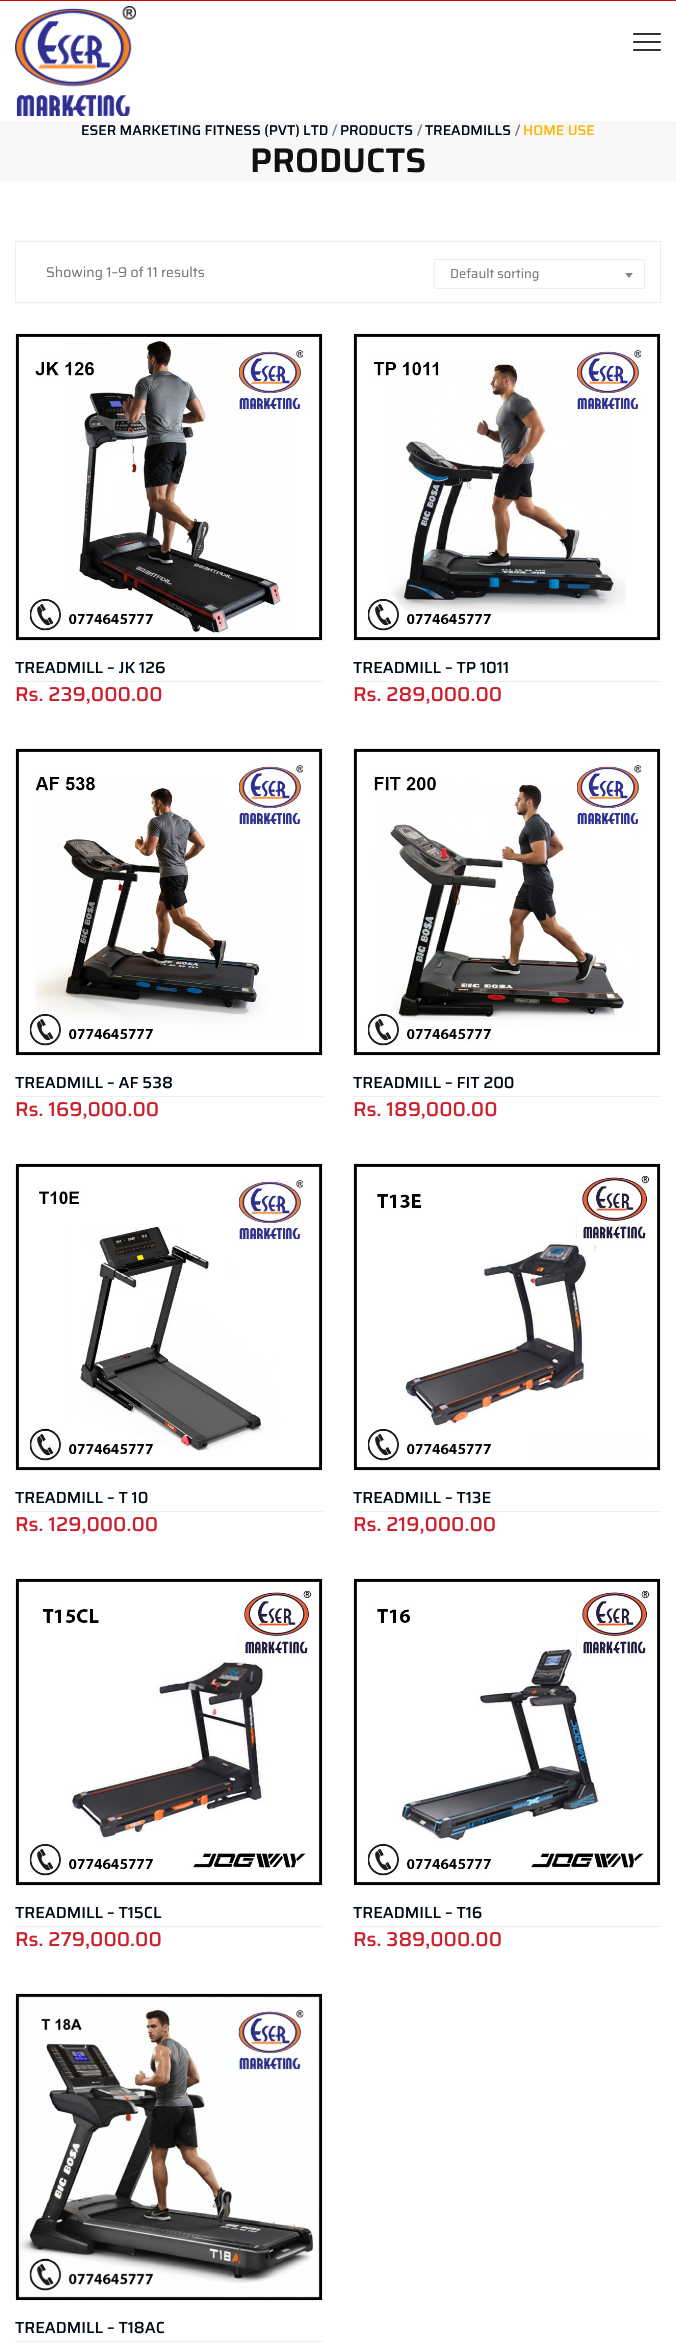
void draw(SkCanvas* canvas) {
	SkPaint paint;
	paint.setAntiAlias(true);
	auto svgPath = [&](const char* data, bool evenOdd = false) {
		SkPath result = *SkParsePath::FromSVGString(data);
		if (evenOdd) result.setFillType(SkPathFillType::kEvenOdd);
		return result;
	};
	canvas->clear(0xffffffff);
	{
		const SkColor colors[] = {0xffc70404, 0xfff5180c};
		const float stops[] = {0, 1};
		const SkPoint ends[] = {{338, 0}, {338, 24}};
		paint.setShader(SkGradientShader::MakeLinear(ends, colors, stops, 2, SkTileMode::kClamp));
		paint.setAlpha(255);
	}
	canvas->drawRect(SkRect::MakeXYWH(0, 0, 676, 1), paint);
	canvas->drawImageRect(SkImages::DeferredFromEncodedData(SkData::MakeFromFileName("img1.png")), SkRect::MakeXYWH(15, 6, 121, 110), SkSamplingOptions());
	paint.setShader(nullptr);
	paint.setColor(0xff323232);
	canvas->drawRoundRect(SkRect::MakeXYWH(633, 41, 28, 2), 1, 1, paint);
	canvas->drawRoundRect(SkRect::MakeXYWH(633, 33, 28, 2), 1, 1, paint);
	canvas->drawRoundRect(SkRect::MakeXYWH(633, 49, 28, 2), 1, 1, paint);
	paint.setColor(0xfff8f8f8);
	canvas->drawRect(SkRect::MakeXYWH(0, 121, 676, 60), paint);
	SkFont f1(fontMgr->matchFamilyStyle("Saira", SkFontStyle(500, SkFontStyle::kNormal_Width, SkFontStyle::kUpright_Slant)), 14);
	f1.setSubpixel(true);
	paint.setColor(0xff000814);
	canvas->drawString("ESER MARKETING FITNESS (PVT) LTD", 81, 135, f1, paint);
	paint.setColor(0xff777777);
	canvas->drawString("/", 332, 135, f1, paint);
	paint.setColor(0xff000814);
	canvas->drawString("PRODUCTS", 340, 135, f1, paint);
	paint.setColor(0xff777777);
	canvas->drawString("/", 417, 135, f1, paint);
	paint.setColor(0xff000814);
	canvas->drawString("TREADMILLS", 425, 135, f1, paint);
	paint.setColor(0xff777777);
	canvas->drawString("/", 515, 135, f1, paint);
	paint.setColor(0xffffb400);
	canvas->drawString("HOME USE", 523, 135, f1, paint);
	SkFont f2(fontMgr->matchFamilyStyle("Saira", SkFontStyle(600, SkFontStyle::kNormal_Width, SkFontStyle::kUpright_Slant)), 34);
	f2.setSubpixel(true);
	paint.setColor(0xff111111);
	canvas->drawString("PRODUCTS", 250, 172, f2, paint);
	paint.setStroke(true);
	paint.setStrokeWidth(1);
	paint.setColor(0xffeeeeee);
	canvas->drawRect(SkRect::MakeXYWH(15.5, 241.5, 645, 61), paint);
	SkFont f3(fontMgr->matchFamilyStyle("Saira", SkFontStyle::Normal()), 14);
	f3.setSubpixel(true);
	paint.setStroke(false);
	paint.setColor(0xff777777);
	canvas->drawString("Showing 1–9 of 11 results", 46, 277, f3, paint);
	paint.setStroke(true);
	paint.setColor(0xffeeeeee);
	canvas->drawRect(SkRect::MakeXYWH(434.5, 259.5, 210, 29), paint);
	SkFont f4(fontMgr->matchFamilyStyle("Saira", SkFontStyle::Normal()), 13);
	f4.setSubpixel(true);
	paint.setStroke(false);
	paint.setColor(0xff777777);
	canvas->drawString("Default sorting", 450, 278, f4, paint);
	paint.setColor(0xff888888);
	canvas->drawPath(svgPath("M625 273H633L629 278Z"), paint);
	paint.setStroke(true);
	paint.setColor(0xffeeeeee);
	canvas->drawRect(SkRect::MakeXYWH(15.5, 333.5, 307, 307), paint);
	canvas->drawImageRect(SkImages::DeferredFromEncodedData(SkData::MakeFromFileName("img2.png")), SkRect::MakeXYWH(16, 334, 306, 306), SkSamplingOptions());
	paint.setStroke(false);
	canvas->drawRect(SkRect::MakeXYWH(15, 681, 308, 1), paint);
	SkFont f5(fontMgr->matchFamilyStyle("Saira", SkFontStyle(500, SkFontStyle::kNormal_Width, SkFontStyle::kUpright_Slant)), 16);
	f5.setSubpixel(true);
	paint.setColor(0xff000814);
	canvas->drawString("TREADMILL – JK 126", 15, 673, f5, paint);
	SkFont f6(fontMgr->matchFamilyStyle("Saira", SkFontStyle(500, SkFontStyle::kNormal_Width, SkFontStyle::kUpright_Slant)), 20);
	f6.setSubpixel(true);
	paint.setColor(0xffcc212d);
	canvas->drawString("Rs. 239,000.00", 15, 701, f6, paint);
	paint.setStroke(true);
	paint.setColor(0xffeeeeee);
	canvas->drawRect(SkRect::MakeXYWH(353.5, 333.5, 307, 307), paint);
	canvas->drawImageRect(SkImages::DeferredFromEncodedData(SkData::MakeFromFileName("img3.png")), SkRect::MakeXYWH(354, 334, 306, 306), SkSamplingOptions());
	paint.setStroke(false);
	canvas->drawRect(SkRect::MakeXYWH(353, 681, 308, 1), paint);
	paint.setColor(0xff000814);
	canvas->drawString("TREADMILL – TP 1011", 353, 673, f5, paint);
	paint.setColor(0xffcc212d);
	canvas->drawString("Rs. 289,000.00", 353, 701, f6, paint);
	paint.setStroke(true);
	paint.setColor(0xffeeeeee);
	canvas->drawRect(SkRect::MakeXYWH(15.5, 748.5, 307, 307), paint);
	canvas->drawImageRect(SkImages::DeferredFromEncodedData(SkData::MakeFromFileName("img4.png")), SkRect::MakeXYWH(16, 749, 306, 306), SkSamplingOptions());
	paint.setStroke(false);
	canvas->drawRect(SkRect::MakeXYWH(15, 1096, 308, 1), paint);
	paint.setColor(0xff000814);
	canvas->drawString("TREADMILL – AF 538", 15, 1088, f5, paint);
	paint.setColor(0xffcc212d);
	canvas->drawString("Rs. 169,000.00", 15, 1116, f6, paint);
	paint.setStroke(true);
	paint.setColor(0xffeeeeee);
	canvas->drawRect(SkRect::MakeXYWH(353.5, 748.5, 307, 307), paint);
	canvas->drawImageRect(SkImages::DeferredFromEncodedData(SkData::MakeFromFileName("img5.png")), SkRect::MakeXYWH(354, 749, 306, 306), SkSamplingOptions());
	paint.setStroke(false);
	canvas->drawRect(SkRect::MakeXYWH(353, 1096, 308, 1), paint);
	paint.setColor(0xff000814);
	canvas->drawString("TREADMILL – FIT 200", 353, 1088, f5, paint);
	paint.setColor(0xffcc212d);
	canvas->drawString("Rs. 189,000.00", 353, 1116, f6, paint);
	paint.setStroke(true);
	paint.setColor(0xffeeeeee);
	canvas->drawRect(SkRect::MakeXYWH(15.5, 1163.5, 307, 307), paint);
	canvas->drawImageRect(SkImages::DeferredFromEncodedData(SkData::MakeFromFileName("img6.png")), SkRect::MakeXYWH(16, 1164, 306, 306), SkSamplingOptions());
	paint.setStroke(false);
	canvas->drawRect(SkRect::MakeXYWH(15, 1511, 308, 1), paint);
	paint.setColor(0xff000814);
	canvas->drawString("TREADMILL – T 10", 15, 1503, f5, paint);
	paint.setColor(0xffcc212d);
	canvas->drawString("Rs. 129,000.00", 15, 1531, f6, paint);
	paint.setStroke(true);
	paint.setColor(0xffeeeeee);
	canvas->drawRect(SkRect::MakeXYWH(353.5, 1163.5, 307, 307), paint);
	canvas->drawImageRect(SkImages::DeferredFromEncodedData(SkData::MakeFromFileName("img7.png")), SkRect::MakeXYWH(354, 1164, 306, 306), SkSamplingOptions());
	paint.setStroke(false);
	canvas->drawRect(SkRect::MakeXYWH(353, 1511, 308, 1), paint);
	paint.setColor(0xff000814);
	canvas->drawString("TREADMILL – T13E", 353, 1503, f5, paint);
	paint.setColor(0xffcc212d);
	canvas->drawString("Rs. 219,000.00", 353, 1531, f6, paint);
	paint.setStroke(true);
	paint.setColor(0xffeeeeee);
	canvas->drawRect(SkRect::MakeXYWH(15.5, 1578.5, 307, 307), paint);
	canvas->drawImageRect(SkImages::DeferredFromEncodedData(SkData::MakeFromFileName("img8.png")), SkRect::MakeXYWH(16, 1579, 306, 306), SkSamplingOptions());
	paint.setStroke(false);
	canvas->drawRect(SkRect::MakeXYWH(15, 1926, 308, 1), paint);
	paint.setColor(0xff000814);
	canvas->drawString("TREADMILL – T15CL", 15, 1918, f5, paint);
	paint.setColor(0xffcc212d);
	canvas->drawString("Rs. 279,000.00", 15, 1946, f6, paint);
	paint.setStroke(true);
	paint.setColor(0xffeeeeee);
	canvas->drawRect(SkRect::MakeXYWH(353.5, 1578.5, 307, 307), paint);
	canvas->drawImageRect(SkImages::DeferredFromEncodedData(SkData::MakeFromFileName("img9.png")), SkRect::MakeXYWH(354, 1579, 306, 306), SkSamplingOptions());
	paint.setStroke(false);
	canvas->drawRect(SkRect::MakeXYWH(353, 1926, 308, 1), paint);
	paint.setColor(0xff000814);
	canvas->drawString("TREADMILL – T16", 353, 1918, f5, paint);
	paint.setColor(0xffcc212d);
	canvas->drawString("Rs. 389,000.00", 353, 1946, f6, paint);
	paint.setStroke(true);
	paint.setColor(0xffeeeeee);
	canvas->drawRect(SkRect::MakeXYWH(15.5, 1993.5, 307, 307), paint);
	canvas->drawImageRect(SkImages::DeferredFromEncodedData(SkData::MakeFromFileName("img10.png")), SkRect::MakeXYWH(16, 1994, 306, 306), SkSamplingOptions());
	paint.setStroke(false);
	canvas->drawRect(SkRect::MakeXYWH(15, 2341, 308, 1), paint);
	paint.setColor(0xff000814);
	canvas->drawString("TREADMILL – T18AC", 15, 2333, f5, paint);
}
